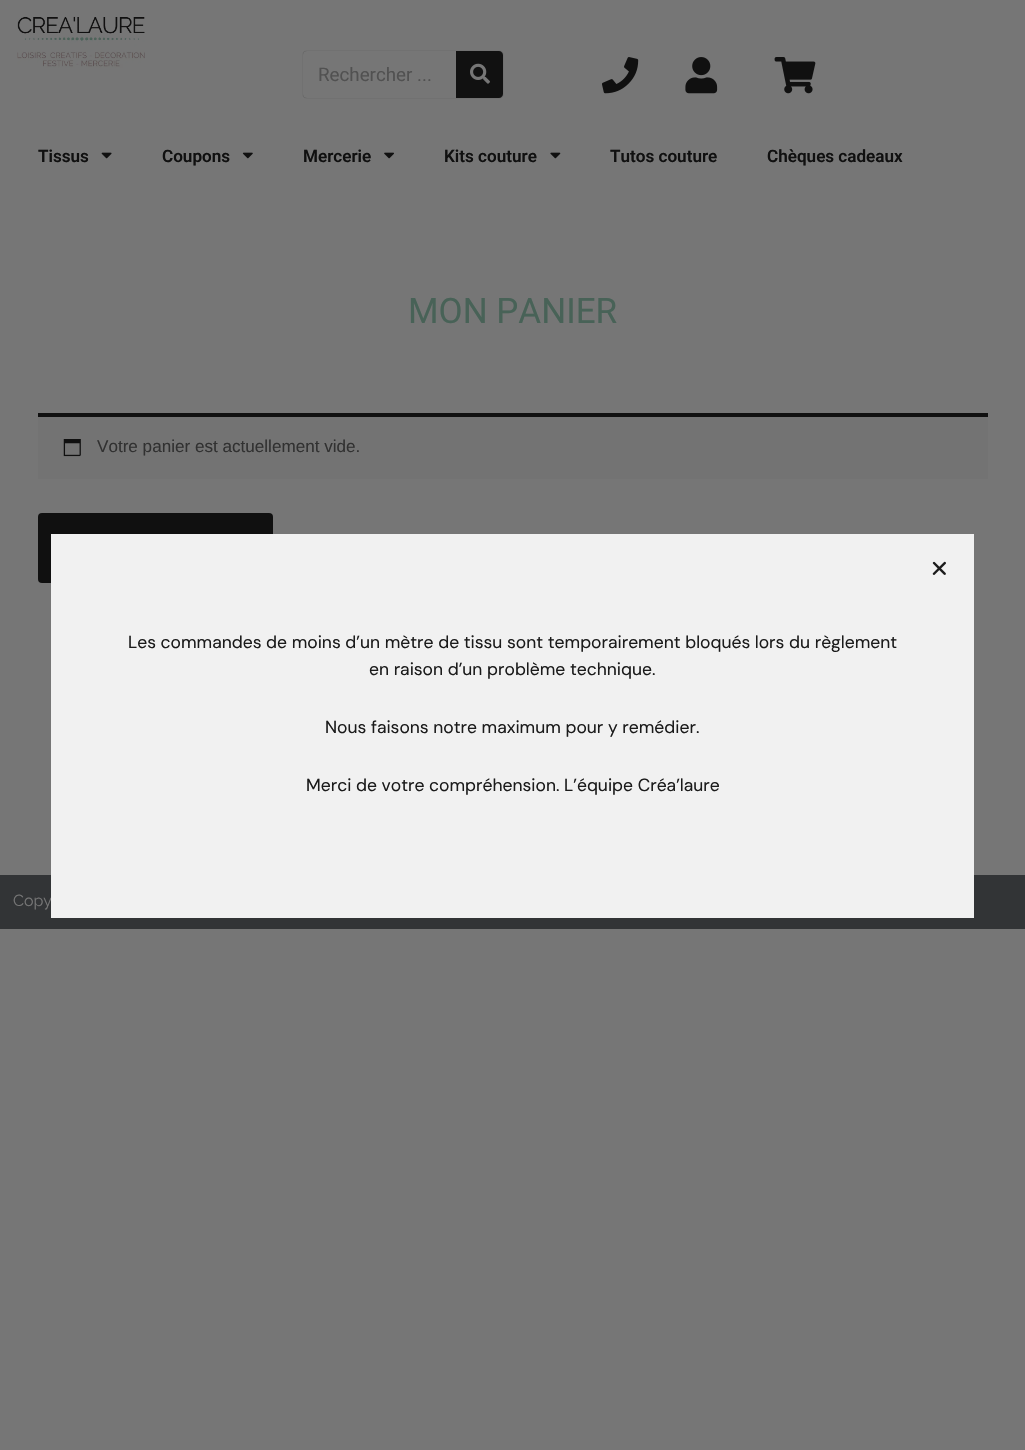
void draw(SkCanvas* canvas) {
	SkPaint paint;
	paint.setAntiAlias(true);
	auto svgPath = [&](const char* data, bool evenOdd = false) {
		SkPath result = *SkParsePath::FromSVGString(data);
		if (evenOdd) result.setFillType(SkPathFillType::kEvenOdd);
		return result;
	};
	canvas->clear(0xff767676);
	canvas->drawImageRect(SkImages::DeferredFromEncodedData(SkData::MakeFromFileName("img1.png")), SkRect::MakeXYWH(17, 16, 128, 52), SkSamplingOptions());
	paint.setColor(0x80101010);
	paint.setMaskFilter(SkMaskFilter::MakeBlur(kNormal_SkBlurStyle, 0.5));
	canvas->drawRoundRect(SkRect::MakeXYWH(303, 51, 200, 47), 4, 4, paint);
	paint.setMaskFilter(nullptr);
	paint.setColor(0xff767676);
	canvas->drawRoundRect(SkRect::MakeXYWH(303, 51, 200, 47), 4, 4, paint);
	SkFont f1(fontMgr->matchFamilyStyle("Roboto", SkFontStyle::Normal()), 18.75);
	f1.setSubpixel(true);
	paint.setColor(0xff515151);
	canvas->drawString("Rechercher ...", 318, 81, f1, paint);
	paint.setColor(0xff111111);
	canvas->drawPath(svgPath("M456 51H499C501 51 503 53 503 55V94C503 96 501 98 499 98H456Z"), paint);
	canvas->drawImageRect(SkImages::DeferredFromEncodedData(SkData::MakeFromFileName("img2.png")), SkRect::MakeXYWH(470, 63, 20, 21), SkSamplingOptions());
	canvas->drawImageRect(SkImages::DeferredFromEncodedData(SkData::MakeFromFileName("img3.png")), SkRect::MakeXYWH(602, 57, 37, 37), SkSamplingOptions());
	canvas->drawImageRect(SkImages::DeferredFromEncodedData(SkData::MakeFromFileName("img4.png")), SkRect::MakeXYWH(685, 57, 33, 37), SkSamplingOptions());
	canvas->drawImageRect(SkImages::DeferredFromEncodedData(SkData::MakeFromFileName("img5.png")), SkRect::MakeXYWH(774, 57, 42, 37), SkSamplingOptions());
	SkFont f2(fontMgr->matchFamilyStyle("Roboto", SkFontStyle(600, SkFontStyle::kNormal_Width, SkFontStyle::kUpright_Slant)), 17.1);
	f2.setSubpixel(true);
	paint.setColor(0xff101010);
	canvas->drawString("Tissus", 38, 162, f2, paint);
	canvas->drawImageRect(SkImages::DeferredFromEncodedData(SkData::MakeFromFileName("img6.png")), SkRect::MakeXYWH(101, 152, 11, 7), SkSamplingOptions());
	canvas->drawString("Coupons", 162, 162, f2, paint);
	canvas->drawImageRect(SkImages::DeferredFromEncodedData(SkData::MakeFromFileName("img7.png")), SkRect::MakeXYWH(242, 152, 11, 7), SkSamplingOptions());
	canvas->drawString("Mercerie", 303, 162, f2, paint);
	canvas->drawImageRect(SkImages::DeferredFromEncodedData(SkData::MakeFromFileName("img8.png")), SkRect::MakeXYWH(384, 152, 10, 7), SkSamplingOptions());
	canvas->drawString("Kits couture", 444, 162, f2, paint);
	canvas->drawImageRect(SkImages::DeferredFromEncodedData(SkData::MakeFromFileName("img9.png")), SkRect::MakeXYWH(550, 152, 11, 7), SkSamplingOptions());
	canvas->drawString("Tutos couture", 610, 162, f2, paint);
	canvas->drawString("Chèques cadeaux", 767, 162, f2, paint);
	SkFont f3(fontMgr->matchFamilyStyle("Roboto", SkFontStyle::Normal()), 35);
	f3.setSubpixel(true);
	paint.setColor(0xff486257);
	canvas->drawString("MON PANIER", 408, 323, f3, paint);
	paint.setColor(0xff737373);
	canvas->drawRect(SkRect::MakeXYWH(38, 417, 950, 62), paint);
	paint.setColor(0xff101010);
	canvas->drawRect(SkRect::MakeXYWH(38, 413, 950, 4), paint);
	canvas->drawImageRect(SkImages::DeferredFromEncodedData(SkData::MakeFromFileName("img10.png")), SkRect::MakeXYWH(63, 439, 18, 18), SkSamplingOptions());
	SkFont f4(fontMgr->matchFamilyStyle("Liberation Sans", SkFontStyle::Normal()), 17.1);
	f4.setSubpixel(true);
	paint.setColor(0xff313131);
	canvas->drawString("Votre panier est actuellement vide.", 97, 452, f4, paint);
	paint.setColor(0xff101010);
	canvas->drawRoundRect(SkRect::MakeXYWH(38, 513, 235, 70), 4, 4, paint);
	paint.setColor(0xff323436);
	canvas->drawRect(SkRect::MakeXYWH(0, 875, 1025, 54), paint);
	SkFont f5(fontMgr->matchFamilyStyle("Raleway", SkFontStyle::Normal()), 16);
	f5.setSubpixel(true);
	paint.setColor(0xff767676);
	canvas->drawString("Copy", 13, 906, f5, paint);
	paint.setColor(0xfff1f1f1);
	canvas->drawRect(SkRect::MakeXYWH(51, 534, 923, 384), paint);
	canvas->drawImageRect(SkImages::DeferredFromEncodedData(SkData::MakeFromFileName("img11.png")), SkRect::MakeXYWH(932, 561, 14, 14), SkSamplingOptions());
	SkFont f6(fontMgr->matchFamilyStyle("DM Sans", SkFontStyle::Normal()), 17.5);
	f6.setSubpixel(true);
	paint.setColor(0xff1b1b1b);
	canvas->drawString("Les commandes de moins d’un mètre de tissu sont temporairement bloqués lors du règlement", 128, 648, f6, paint);
	canvas->drawString("en raison d’un problème technique.", 369, 675, f6, paint);
	canvas->drawString("Nous faisons notre maximum pour y remédier.", 325, 733, f6, paint);
	canvas->drawString("Merci de votre compréhension. L’équipe Créa’laure", 306, 791, f6, paint);
}
